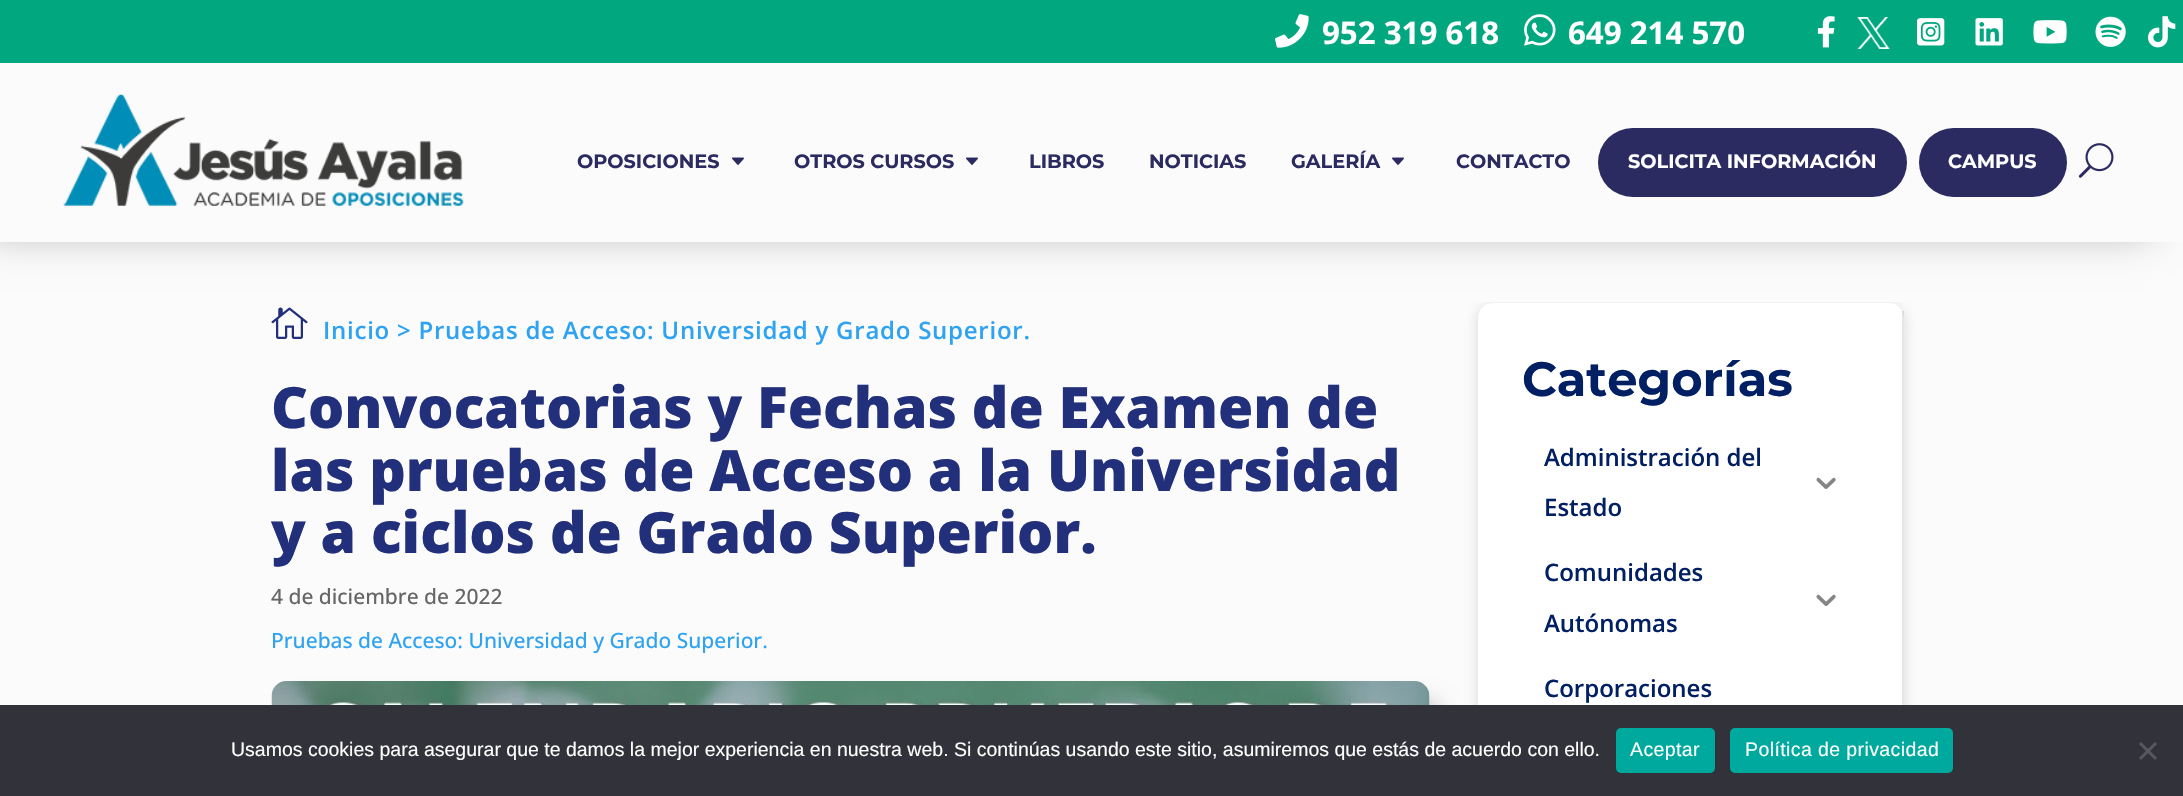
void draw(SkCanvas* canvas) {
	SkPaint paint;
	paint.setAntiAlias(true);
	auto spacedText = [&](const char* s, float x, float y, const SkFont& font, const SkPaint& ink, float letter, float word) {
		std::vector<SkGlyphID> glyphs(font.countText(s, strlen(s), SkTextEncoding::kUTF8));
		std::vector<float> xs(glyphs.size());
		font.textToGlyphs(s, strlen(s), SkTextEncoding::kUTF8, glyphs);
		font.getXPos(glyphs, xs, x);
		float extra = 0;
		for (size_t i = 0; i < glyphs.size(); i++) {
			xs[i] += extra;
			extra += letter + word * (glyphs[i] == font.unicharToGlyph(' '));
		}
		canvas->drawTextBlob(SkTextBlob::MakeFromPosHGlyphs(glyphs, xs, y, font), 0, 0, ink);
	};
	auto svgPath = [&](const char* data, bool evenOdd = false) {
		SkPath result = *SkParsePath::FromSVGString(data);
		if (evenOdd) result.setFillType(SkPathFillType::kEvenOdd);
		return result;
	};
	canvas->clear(0xfffbfbfb);
	paint.setColor(0x4d000000);
	paint.setMaskFilter(SkMaskFilter::MakeBlur(kNormal_SkBlurStyle, 19));
	canvas->drawRect(SkRect::MakeXYWH(-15, 9, 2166, 224), paint);
	paint.setMaskFilter(nullptr);
	paint.setColor(0xff01a77f);
	canvas->drawRect(SkRect::MakeXYWH(0, 0, 2183, 63), paint);
	canvas->drawImageRect(SkImages::DeferredFromEncodedData(SkData::MakeFromFileName("img1.png")), SkRect::MakeXYWH(1275, 14, 34, 34), SkSamplingOptions());
	SkFont f1(fontMgr->matchFamilyStyle("Open Sans", SkFontStyle::Bold()), 31.25);
	f1.setSubpixel(true);
	paint.setColor(0xffffffff);
	canvas->drawString("952 319 618", 1322, 44, f1, paint);
	canvas->drawImageRect(SkImages::DeferredFromEncodedData(SkData::MakeFromFileName("img2.png")), SkRect::MakeXYWH(1524, 14, 32, 32), SkSamplingOptions());
	canvas->drawString("649 214 570", 1568, 44, f1, paint);
	canvas->drawImageRect(SkImages::DeferredFromEncodedData(SkData::MakeFromFileName("img3.png")), SkRect::MakeXYWH(1817, 16, 18, 32), SkSamplingOptions());
	canvas->drawImageRect(SkImages::DeferredFromEncodedData(SkData::MakeFromFileName("img4.png")), SkRect::MakeXYWH(1857, 17, 33, 32), SkSamplingOptions());
	canvas->drawImageRect(SkImages::DeferredFromEncodedData(SkData::MakeFromFileName("img5.png")), SkRect::MakeXYWH(1917, 18, 28, 28), SkSamplingOptions());
	canvas->drawImageRect(SkImages::DeferredFromEncodedData(SkData::MakeFromFileName("img6.png")), SkRect::MakeXYWH(1975, 18, 28, 28), SkSamplingOptions());
	canvas->drawImageRect(SkImages::DeferredFromEncodedData(SkData::MakeFromFileName("img7.png")), SkRect::MakeXYWH(2033, 20, 34, 24), SkSamplingOptions());
	canvas->drawImageRect(SkImages::DeferredFromEncodedData(SkData::MakeFromFileName("img8.png")), SkRect::MakeXYWH(2095, 16, 31, 31), SkSamplingOptions());
	canvas->drawImageRect(SkImages::DeferredFromEncodedData(SkData::MakeFromFileName("img9.png")), SkRect::MakeXYWH(2148, 16, 28, 32), SkSamplingOptions());
	paint.setColor(0xfffbfbfb);
	canvas->drawRect(SkRect::MakeXYWH(0, 63, 2183, 179), paint);
	canvas->drawImageRect(SkImages::DeferredFromEncodedData(SkData::MakeFromFileName("img10.png")), SkRect::MakeXYWH(63, 94, 401, 112), SkSamplingOptions());
	SkFont f2(fontMgr->matchFamilyStyle("Montserrat", SkFontStyle(100, SkFontStyle::kNormal_Width, SkFontStyle::kUpright_Slant)), 19.25);
	f2.setSubpixel(true);
	paint.setColor(0xff2b2b62);
	canvas->drawString("OPOSICIONES", 577, 168, f2, paint);
	canvas->drawImageRect(SkImages::DeferredFromEncodedData(SkData::MakeFromFileName("img11.png")), SkRect::MakeXYWH(732, 157, 12, 8), SkSamplingOptions());
	canvas->drawString("OTROS CURSOS", 794, 168, f2, paint);
	canvas->drawImageRect(SkImages::DeferredFromEncodedData(SkData::MakeFromFileName("img11.png")), SkRect::MakeXYWH(966, 157, 12, 8), SkSamplingOptions());
	canvas->drawString("LIBROS", 1029, 168, f2, paint);
	canvas->drawString("NOTICIAS", 1149, 168, f2, paint);
	canvas->drawString("GALERÍA", 1291, 168, f2, paint);
	canvas->drawImageRect(SkImages::DeferredFromEncodedData(SkData::MakeFromFileName("img11.png")), SkRect::MakeXYWH(1392, 157, 12, 8), SkSamplingOptions());
	canvas->drawString("CONTACTO", 1456, 168, f2, paint);
	canvas->drawRoundRect(SkRect::MakeXYWH(1598, 128, 309, 69), 34.5, 34.5, paint);
	paint.setColor(0xffffffff);
	canvas->drawString("SOLICITA INFORMACIÓN", 1628, 168, f2, paint);
	paint.setColor(0xff2b2b62);
	canvas->drawRoundRect(SkRect::MakeXYWH(1919, 128, 148, 69), 34.5, 34.5, paint);
	paint.setColor(0xffffffff);
	canvas->drawString("CAMPUS", 1948, 168, f2, paint);
	canvas->drawImageRect(SkImages::DeferredFromEncodedData(SkData::MakeFromFileName("img12.png")), SkRect::MakeXYWH(2078, 143, 36, 35), SkSamplingOptions());
	canvas->drawImageRect(SkImages::DeferredFromEncodedData(SkData::MakeFromFileName("img13.png")), SkRect::MakeXYWH(271, 307, 37, 32), SkSamplingOptions());
	SkFont f3(fontMgr->matchFamilyStyle("Open Sans", SkFontStyle(600, SkFontStyle::kNormal_Width, SkFontStyle::kUpright_Slant)), 24);
	f3.setSubpixel(true);
	paint.setColor(0xff2ea3f2);
	spacedText("Inicio > Pruebas de Acceso: Universidad y Grado Superior.", 323, 339, f3, paint, 0.75, 0);
	SkFont f4(fontMgr->matchFamilyStyle("Open Sans", SkFontStyle(800, SkFontStyle::kNormal_Width, SkFontStyle::kUpright_Slant)), 57);
	f4.setSubpixel(true);
	paint.setColor(0xff222f7b);
	canvas->drawString("Convocatorias y Fechas de Examen de", 271, 428, f4, paint);
	canvas->drawString("las pruebas de Acceso a la Universidad", 271, 491, f4, paint);
	canvas->drawString("y a ciclos de Grado Superior.", 271, 553, f4, paint);
	SkFont f5(fontMgr->matchFamilyStyle("Open Sans", SkFontStyle(500, SkFontStyle::kNormal_Width, SkFontStyle::kUpright_Slant)), 21);
	f5.setSubpixel(true);
	paint.setColor(0xff666666);
	canvas->drawString("4 de diciembre de 2022", 271, 604, f5, paint);
	paint.setColor(0xff2ea3f2);
	canvas->drawString("Pruebas de Acceso: Universidad y Grado Superior.", 271, 648, f5, paint);
	paint.setColor(0x4d000000);
	paint.setMaskFilter(SkMaskFilter::MakeBlur(kNormal_SkBlurStyle, 12));
	canvas->drawRoundRect(SkRect::MakeXYWH(296, 705, 1140, 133), 6, 6, paint);
	paint.setMaskFilter(nullptr);
	canvas->drawImageRect(SkImages::DeferredFromEncodedData(SkData::MakeFromFileName("img14.png")), SkRect::MakeXYWH(271, 681, 1159, 24), SkSamplingOptions());
	canvas->save();
	canvas->clipPath(svgPath("M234 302H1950C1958.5 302 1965 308.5 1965 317V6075C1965 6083.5 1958.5 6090 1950 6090H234C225.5 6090 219 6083.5 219 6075V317C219 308.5 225.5 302 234 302Z"), true);
	paint.setColor(0x4d848484);
	paint.setMaskFilter(SkMaskFilter::MakeBlur(kNormal_SkBlurStyle, 7));
	canvas->drawRoundRect(SkRect::MakeXYWH(1478, 306, 426, 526), 15, 15, paint);
	paint.setMaskFilter(nullptr);
	canvas->restore();
	paint.setColor(0xffffffff);
	canvas->drawRoundRect(SkRect::MakeXYWH(1478, 303, 426, 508), 15, 15, paint);
	paint.setColor(0x1a000000);
	canvas->drawRect(SkRect::MakeXYWH(1902, 311, 2, 394), paint);
	SkFont f6(fontMgr->matchFamilyStyle("Montserrat", SkFontStyle(100, SkFontStyle::kNormal_Width, SkFontStyle::kUpright_Slant)), 48);
	f6.setSubpixel(true);
	paint.setColor(0xff011f63);
	canvas->drawString("Categorías", 1522, 396, f6, paint);
	canvas->drawString("Administración del", 1544, 466, f3, paint);
	canvas->drawString("Estado", 1544, 516, f3, paint);
	canvas->drawImageRect(SkImages::DeferredFromEncodedData(SkData::MakeFromFileName("img15.png")), SkRect::MakeXYWH(1816, 477, 20, 12), SkSamplingOptions());
	canvas->drawString("Comunidades", 1544, 581, f3, paint);
	canvas->drawString("Autónomas", 1544, 632, f3, paint);
	canvas->drawImageRect(SkImages::DeferredFromEncodedData(SkData::MakeFromFileName("img15.png")), SkRect::MakeXYWH(1816, 594, 20, 12), SkSamplingOptions());
	canvas->drawString("Corporaciones", 1544, 697, f3, paint);
	paint.setColor(0xff32323a);
	canvas->drawRect(SkRect::MakeXYWH(0, 705, 2183, 91), paint);
	SkFont f7(fontMgr->matchFamilyStyle("Liberation Sans", SkFontStyle::Normal()), 19.5);
	f7.setSubpixel(true);
	paint.setColor(0xffffffff);
	canvas->drawString("Usamos cookies para asegurar que te damos la mejor experiencia en nuestra web. Si continúas usando este sitio, asumiremos que estás de acuerdo con ello.", 231, 756, f7, paint);
	paint.setColor(0xff00a99d);
	canvas->drawRoundRect(SkRect::MakeXYWH(1616, 728, 99, 45), 5, 5, paint);
	paint.setColor(0xffffffff);
	spacedText("Aceptar", 1630, 756, f7, paint, 0.4, 0);
	paint.setColor(0xff00a99d);
	canvas->drawRoundRect(SkRect::MakeXYWH(1730, 728, 223, 45), 5, 5, paint);
	paint.setColor(0xffffffff);
	spacedText("Política de privacidad", 1745, 756, f7, paint, 0.4, 0);
	paint.setColor(0xff59595d);
	canvas->drawPath(svgPath("M2155 742L2157 744L2141 760L2139 758Z"), paint);
	canvas->drawPath(svgPath("M2139 744L2141 742L2157 758L2155 760Z"), paint);
}
